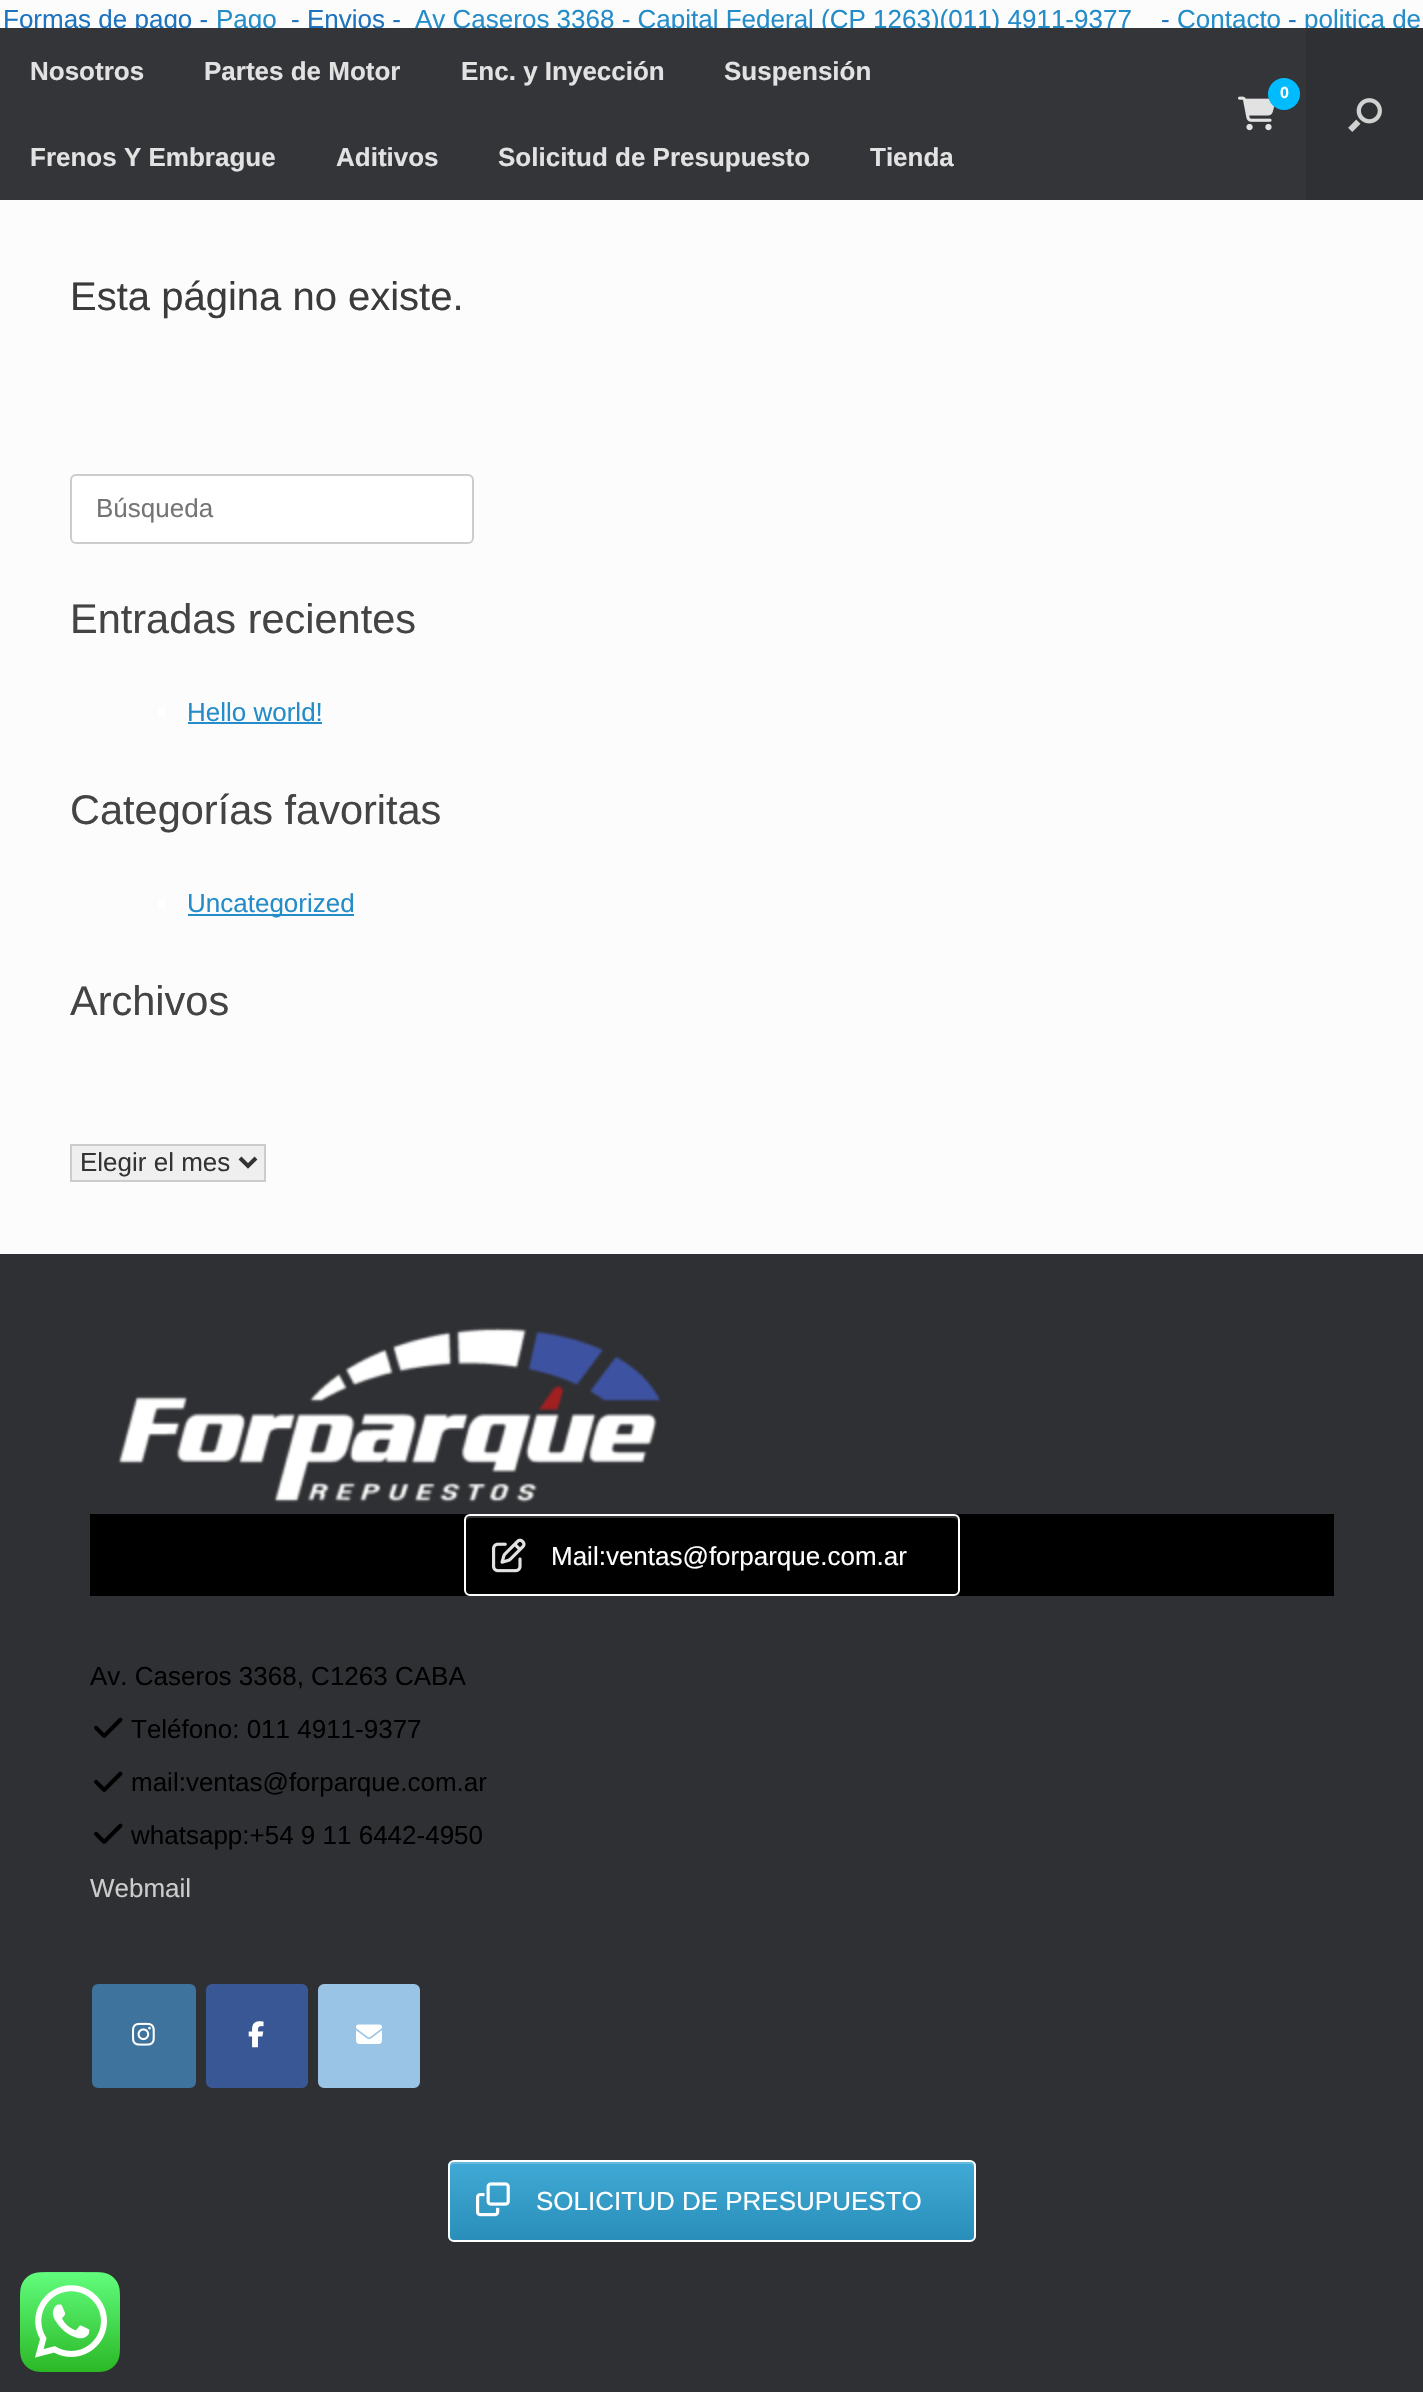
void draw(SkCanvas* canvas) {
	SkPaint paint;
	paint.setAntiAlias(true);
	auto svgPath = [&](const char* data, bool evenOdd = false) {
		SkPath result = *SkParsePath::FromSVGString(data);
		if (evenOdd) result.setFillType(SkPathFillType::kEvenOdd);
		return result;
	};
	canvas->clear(0xff2f3033);
	paint.setColor(0xfffcfcfc);
	canvas->drawRect(SkRect::MakeXYWH(0, 0, 1423, 28), paint);
	SkFont f1(fontMgr->matchFamilyStyle("Liberation Sans", SkFontStyle::Normal()), 26);
	f1.setSubpixel(true);
	paint.setColor(0xff1e73be);
	canvas->drawString("Formas de pago -", 3, 28, f1, paint);
	paint.setColor(0xff248cc8);
	canvas->drawString("Pago", 216, 28, f1, paint);
	paint.setColor(0xff1e73be);
	canvas->drawString("- Envios -", 291, 28, f1, paint);
	paint.setColor(0xff248cc8);
	canvas->drawString("Av Caseros 3368 - Capital Federal (CP 1263)(011) 4911-9377", 415, 28, f1, paint);
	paint.setColor(0xff1e73be);
	canvas->drawString("-", 1161, 28, f1, paint);
	paint.setColor(0xff248cc8);
	canvas->drawString("Contacto", 1177, 28, f1, paint);
	paint.setColor(0xff1e73be);
	canvas->drawString("-", 1288, 28, f1, paint);
	paint.setColor(0xff248cc8);
	canvas->drawString("politica de", 1304, 28, f1, paint);
	paint.setColor(0xff343538);
	canvas->drawRect(SkRect::MakeXYWH(0, 28, 1306, 172), paint);
	SkFont f2(fontMgr->matchFamilyStyle("Liberation Sans", SkFontStyle::Bold()), 26);
	f2.setSubpixel(true);
	paint.setColor(0xffe2e2e2);
	canvas->drawString("Nosotros", 30, 80, f2, paint);
	canvas->drawString("Partes de Motor", 204, 80, f2, paint);
	canvas->drawString("Enc. y Inyección", 461, 80, f2, paint);
	canvas->drawString("Suspensión", 724, 80, f2, paint);
	canvas->drawString("Frenos Y Embrague", 30, 166, f2, paint);
	canvas->drawString("Aditivos", 336, 166, f2, paint);
	canvas->drawString("Solicitud de Presupuesto", 498, 166, f2, paint);
	canvas->drawString("Tienda", 870, 166, f2, paint);
	canvas->drawImageRect(SkImages::DeferredFromEncodedData(SkData::MakeFromFileName("img1.png")), SkRect::MakeXYWH(1238, 96, 37, 35), SkSamplingOptions());
	paint.setColor(0xff00bcff);
	canvas->drawCircle(1284, 94, 16, paint);
	SkFont f3(fontMgr->matchFamilyStyle("Liberation Sans", SkFontStyle::Bold()), 16);
	f3.setSubpixel(true);
	paint.setColor(0xffffffff);
	canvas->drawString("0", 1280, 98, f3, paint);
	paint.setColor(0xff303134);
	canvas->drawRect(SkRect::MakeXYWH(1306, 28, 110, 6), paint);
	canvas->drawImageRect(SkImages::DeferredFromEncodedData(SkData::MakeFromFileName("img2.png")), SkRect::MakeXYWH(1348, 98, 34, 34), SkSamplingOptions());
	paint.setColor(0xfffcfcfc);
	canvas->drawRect(SkRect::MakeXYWH(0, 200, 1423, 1054), paint);
	SkFont f4(fontMgr->matchFamilyStyle("Liberation Sans", SkFontStyle::Normal()), 40);
	f4.setSubpixel(true);
	paint.setColor(0xff3b3b3b);
	canvas->drawString("Esta página no existe.", 70, 310, f4, paint);
	paint.setColor(0xffffffff);
	canvas->drawRoundRect(SkRect::MakeXYWH(71, 475, 402, 68), 5, 5, paint);
	paint.setStroke(true);
	paint.setStrokeWidth(2);
	paint.setColor(0xffcccccc);
	canvas->drawRoundRect(SkRect::MakeXYWH(71, 475, 402, 68), 5, 5, paint);
	paint.setStroke(false);
	paint.setColor(0xff757575);
	canvas->drawString("Búsqueda", 96, 517, f1, paint);
	SkFont f5(fontMgr->matchFamilyStyle("Liberation Sans", SkFontStyle::Normal()), 41.5);
	f5.setSubpixel(true);
	paint.setColor(0xff444444);
	canvas->drawString("Entradas recientes", 70, 633, f5, paint);
	paint.setColor(0xffffffff);
	canvas->drawRect(SkRect::MakeXYWH(158, 708, 8, 8), paint);
	paint.setColor(0xff248cc8);
	canvas->drawString("Hello world!", 187, 721, f1, paint);
	canvas->drawRect(SkRect::MakeXYWH(188, 722, 134, 2), paint);
	paint.setColor(0xff444444);
	canvas->drawString("Categorías favoritas", 70, 824, f5, paint);
	paint.setColor(0xffffffff);
	canvas->drawRect(SkRect::MakeXYWH(158, 900, 8, 8), paint);
	paint.setColor(0xff248cc8);
	canvas->drawRect(SkRect::MakeXYWH(188, 914, 166, 2), paint);
	canvas->drawString("Uncategorized", 187, 912, f1, paint);
	paint.setColor(0xff444444);
	canvas->drawString("Archivos", 70, 1015, f5, paint);
	paint.setColor(0xffefefef);
	canvas->drawRect(SkRect::MakeXYWH(71, 1145, 194, 36), paint);
	paint.setStroke(true);
	paint.setColor(0xffcccccc);
	canvas->drawRect(SkRect::MakeXYWH(71, 1145, 194, 36), paint);
	paint.setStrokeWidth(4);
	paint.setColor(0xff333333);
	canvas->drawPath(svgPath("M240 1158L248 1166L256 1158"), paint);
	paint.setStroke(false);
	canvas->drawString("Elegir el mes", 80, 1171, f1, paint);
	canvas->drawImageRect(SkImages::DeferredFromEncodedData(SkData::MakeFromFileName("img3.png")), SkRect::MakeXYWH(118, 1327, 543, 176), SkSamplingOptions());
	paint.setColor(0xff000000);
	canvas->drawRect(SkRect::MakeXYWH(90, 1514, 1244, 82), paint);
	paint.setColor(0xff333333);
	canvas->drawPath(svgPath("M470 1518H954C956 1518 958 1520 958 1522V1520C958 1518 956 1516 954 1516H470C468 1516 466 1518 466 1520V1522C466 1520 468 1518 470 1518Z"), paint);
	paint.setStroke(true);
	paint.setStrokeWidth(2);
	paint.setColor(0xffffffff);
	canvas->drawRoundRect(SkRect::MakeXYWH(465, 1515, 494, 80), 5, 5, paint);
	canvas->drawImageRect(SkImages::DeferredFromEncodedData(SkData::MakeFromFileName("img4.png")), SkRect::MakeXYWH(492, 1538, 34, 35), SkSamplingOptions());
	paint.setStroke(false);
	canvas->drawString("Mail:ventas@forparque.com.ar", 551, 1565, f1, paint);
	paint.setColor(0xff000000);
	canvas->drawString("Av. Caseros 3368, C1263 CABA", 90, 1685, f1, paint);
	canvas->drawImageRect(SkImages::DeferredFromEncodedData(SkData::MakeFromFileName("img5.png")), SkRect::MakeXYWH(94, 1717, 29, 21), SkSamplingOptions());
	canvas->drawString("Teléfono: 011 4911-9377", 131, 1738, f1, paint);
	canvas->drawImageRect(SkImages::DeferredFromEncodedData(SkData::MakeFromFileName("img5.png")), SkRect::MakeXYWH(94, 1771, 29, 21), SkSamplingOptions());
	canvas->drawString("mail:ventas@forparque.com.ar", 131, 1791, f1, paint);
	canvas->drawImageRect(SkImages::DeferredFromEncodedData(SkData::MakeFromFileName("img5.png")), SkRect::MakeXYWH(94, 1823, 29, 21), SkSamplingOptions());
	canvas->drawString("whatsapp:+54 9 11 6442-4950", 131, 1844, f1, paint);
	paint.setColor(0xffcccccc);
	canvas->drawString("Webmail", 90, 1897, f1, paint);
	paint.setColor(0xff3d739c);
	canvas->drawRoundRect(SkRect::MakeXYWH(93, 1985, 102, 102), 5, 5, paint);
	paint.setStroke(true);
	canvas->drawRoundRect(SkRect::MakeXYWH(93, 1985, 102, 102), 5, 5, paint);
	canvas->drawImageRect(SkImages::DeferredFromEncodedData(SkData::MakeFromFileName("img6.png")), SkRect::MakeXYWH(132, 2022, 23, 24), SkSamplingOptions());
	paint.setStroke(false);
	paint.setColor(0xff3a5795);
	canvas->drawRoundRect(SkRect::MakeXYWH(207, 1985, 100, 102), 5, 5, paint);
	paint.setStroke(true);
	canvas->drawRoundRect(SkRect::MakeXYWH(207, 1985, 100, 102), 5, 5, paint);
	canvas->drawImageRect(SkImages::DeferredFromEncodedData(SkData::MakeFromFileName("img7.png")), SkRect::MakeXYWH(248, 2021, 16, 27), SkSamplingOptions());
	paint.setStroke(false);
	paint.setColor(0xff99c4e6);
	canvas->drawRoundRect(SkRect::MakeXYWH(319, 1985, 100, 102), 5, 5, paint);
	paint.setStroke(true);
	canvas->drawRoundRect(SkRect::MakeXYWH(319, 1985, 100, 102), 5, 5, paint);
	canvas->drawImageRect(SkImages::DeferredFromEncodedData(SkData::MakeFromFileName("img8.png")), SkRect::MakeXYWH(356, 2024, 26, 20), SkSamplingOptions());
	canvas->save();
	canvas->clipPath(svgPath("M454 2160H970C973.5 2160 976 2162.5 976 2166V2236C976 2239.5 973.5 2242 970 2242H454C450.5 2242 448 2239.5 448 2236V2166C448 2162.5 450.5 2160 454 2160Z"), true);
	paint.setStroke(false);
	{
		const SkColor colors[] = {0xff298fba, 0xff41a9d5};
		const float stops[] = {0, 1};
		const SkPoint ends[] = {{450, 2240}, {450, 2162}};
		paint.setShader(SkGradientShader::MakeLinear(ends, colors, stops, 2, SkTileMode::kClamp));
		paint.setAlpha(255);
	}
	canvas->drawRect(SkRect::MakeXYWH(448, 2162, 528, 78), paint);
	canvas->restore();
	paint.setShader(nullptr);
	paint.setColor(0xff67badd);
	canvas->drawPath(svgPath("M454 2164H970C972 2164 974 2166 974 2168V2166C974 2164 972 2162 970 2162H454C452 2162 450 2164 450 2166V2168C450 2166 452 2164 454 2164Z"), paint);
	paint.setStroke(true);
	paint.setColor(0xffffffff);
	canvas->drawRoundRect(SkRect::MakeXYWH(449, 2161, 526, 80), 5, 5, paint);
	canvas->drawImageRect(SkImages::DeferredFromEncodedData(SkData::MakeFromFileName("img9.png")), SkRect::MakeXYWH(476, 2182, 34, 35), SkSamplingOptions());
	paint.setStroke(false);
	canvas->drawString("SOLICITUD DE PRESUPUESTO", 536, 2210, f1, paint);
	canvas->drawImageRect(SkImages::DeferredFromEncodedData(SkData::MakeFromFileName("img10.png")), SkRect::MakeXYWH(20, 2272, 100, 100), SkSamplingOptions());
}
